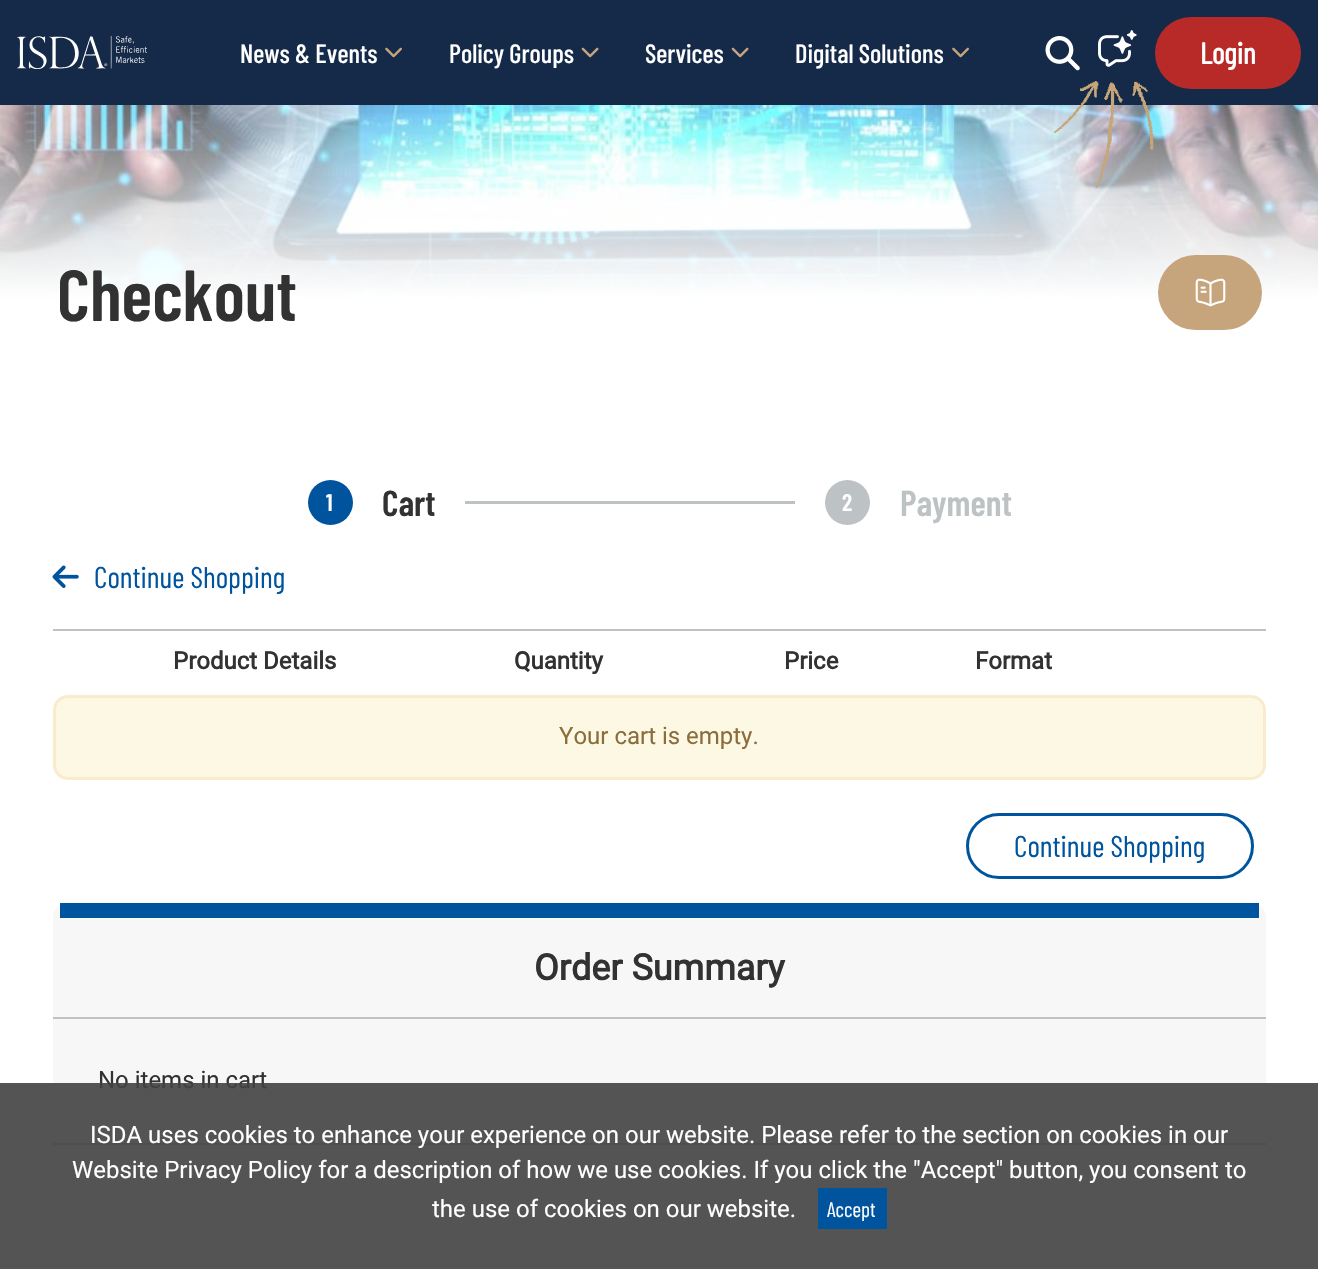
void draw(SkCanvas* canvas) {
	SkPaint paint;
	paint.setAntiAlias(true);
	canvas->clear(0xffffffff);
	paint.setColor(0xff152a48);
	canvas->drawRect(SkRect::MakeXYWH(0, 0, 1318, 105), paint);
	canvas->drawImageRect(SkImages::DeferredFromEncodedData(SkData::MakeFromFileName("img1.png")), SkRect::MakeXYWH(17, 36, 130, 33), SkSamplingOptions());
	SkFont f1(fontMgr->matchFamilyStyle("Barlow Condensed", SkFontStyle(500, SkFontStyle::kNormal_Width, SkFontStyle::kUpright_Slant)), 26.5);
	f1.setSubpixel(true);
	paint.setColor(0xffffffff);
	canvas->drawString("News & Events", 240, 63, f1, paint);
	canvas->drawImageRect(SkImages::DeferredFromEncodedData(SkData::MakeFromFileName("img2.png")), SkRect::MakeXYWH(385, 47, 17, 11), SkSamplingOptions());
	canvas->drawString("Policy Groups", 449, 63, f1, paint);
	canvas->drawImageRect(SkImages::DeferredFromEncodedData(SkData::MakeFromFileName("img3.png")), SkRect::MakeXYWH(581, 47, 18, 11), SkSamplingOptions());
	canvas->drawString("Services", 645, 63, f1, paint);
	canvas->drawImageRect(SkImages::DeferredFromEncodedData(SkData::MakeFromFileName("img3.png")), SkRect::MakeXYWH(731, 47, 18, 11), SkSamplingOptions());
	canvas->drawString("Digital Solutions", 795, 63, f1, paint);
	canvas->drawImageRect(SkImages::DeferredFromEncodedData(SkData::MakeFromFileName("img2.png")), SkRect::MakeXYWH(952, 47, 17, 11), SkSamplingOptions());
	canvas->drawImageRect(SkImages::DeferredFromEncodedData(SkData::MakeFromFileName("img4.png")), SkRect::MakeXYWH(1098, 30, 39, 37), SkSamplingOptions());
	canvas->drawImageRect(SkImages::DeferredFromEncodedData(SkData::MakeFromFileName("img7.png")), SkRect::MakeXYWH(0, 105, 1318, 193), SkSamplingOptions());
	{
		const SkColor colors[] = {0x66ffffff, 0xffffffff, 0xffffffff};
		const float stops[] = {0, 0.52, 1};
		const SkPoint ends[] = {{659, 105}, {659, 480}};
		paint.setShader(SkGradientShader::MakeLinear(ends, colors, stops, 3, SkTileMode::kClamp));
		paint.setAlpha(255);
	}
	canvas->drawRect(SkRect::MakeXYWH(0, 105, 1318, 193), paint);
	canvas->drawImageRect(SkImages::DeferredFromEncodedData(SkData::MakeFromFileName("img5.png")), SkRect::MakeXYWH(1054, 81, 100, 107), SkSamplingOptions());
	canvas->drawImageRect(SkImages::DeferredFromEncodedData(SkData::MakeFromFileName("img6.png")), SkRect::MakeXYWH(1045, 36, 35, 35), SkSamplingOptions());
	paint.setShader(nullptr);
	paint.setColor(0xffb72a28);
	canvas->drawRoundRect(SkRect::MakeXYWH(1155, 17, 146, 72), 36, 36, paint);
	SkFont f2(fontMgr->matchFamilyStyle("Barlow Condensed", SkFontStyle::Bold()), 30);
	f2.setSubpixel(true);
	paint.setColor(0xffffffff);
	canvas->drawString("Login", 1200, 64, f2, paint);
	SkFont f3(fontMgr->matchFamilyStyle("Barlow Condensed", SkFontStyle(600, SkFontStyle::kNormal_Width, SkFontStyle::kUpright_Slant)), 72);
	f3.setSubpixel(true);
	paint.setColor(0xff323232);
	canvas->drawString("Checkout", 57, 321, f3, paint);
	paint.setColor(0xffc6a57d);
	canvas->drawRoundRect(SkRect::MakeXYWH(1158, 255, 104, 75), 37.5, 37.5, paint);
	canvas->drawImageRect(SkImages::DeferredFromEncodedData(SkData::MakeFromFileName("img8.png")), SkRect::MakeXYWH(1195, 278, 31, 29), SkSamplingOptions());
	paint.setColor(0xff00549e);
	canvas->drawCircle(330.5, 502.5, 22.5, paint);
	SkFont f4(fontMgr->matchFamilyStyle("Barlow Condensed", SkFontStyle(600, SkFontStyle::kNormal_Width, SkFontStyle::kUpright_Slant)), 24);
	f4.setSubpixel(true);
	paint.setColor(0xffffffff);
	canvas->drawString("1", 326, 511, f4, paint);
	SkFont f5(fontMgr->matchFamilyStyle("Barlow Condensed", SkFontStyle(600, SkFontStyle::kNormal_Width, SkFontStyle::kUpright_Slant)), 36);
	f5.setSubpixel(true);
	paint.setColor(0xff323232);
	canvas->drawString("Cart", 382, 516, f5, paint);
	paint.setColor(0xffbdc2c5);
	canvas->drawRect(SkRect::MakeXYWH(465, 501, 330, 3), paint);
	canvas->drawCircle(847.5, 502.5, 22.5, paint);
	paint.setColor(0xffffffff);
	canvas->drawString("2", 842, 511, f4, paint);
	paint.setColor(0xffbdc2c5);
	canvas->drawString("Payment", 900, 516, f5, paint);
	canvas->drawImageRect(SkImages::DeferredFromEncodedData(SkData::MakeFromFileName("img9.png")), SkRect::MakeXYWH(52, 565, 27, 23), SkSamplingOptions());
	SkFont f6(fontMgr->matchFamilyStyle("Barlow Condensed", SkFontStyle::Normal()), 30);
	f6.setSubpixel(true);
	paint.setColor(0xff00549e);
	canvas->drawString("Continue Shopping", 94, 588, f6, paint);
	paint.setColor(0xffbdc2c5);
	canvas->drawRect(SkRect::MakeXYWH(53, 629, 1213, 2), paint);
	SkFont f7(fontMgr->matchFamilyStyle("Roboto", SkFontStyle::Bold()), 24);
	f7.setSubpixel(true);
	paint.setColor(0xff323232);
	canvas->drawString("Product Details", 173, 669, f7, paint);
	canvas->drawString("Quantity", 514, 669, f7, paint);
	canvas->drawString("Price", 784, 669, f7, paint);
	canvas->drawString("Format", 975, 669, f7, paint);
	paint.setColor(0xfffcf8e3);
	canvas->drawRoundRect(SkRect::MakeXYWH(54.5, 696.5, 1210, 82), 13.5, 13.5, paint);
	paint.setStroke(true);
	paint.setStrokeWidth(3);
	paint.setColor(0xfffaebcc);
	canvas->drawRoundRect(SkRect::MakeXYWH(54.5, 696.5, 1210, 82), 13.5, 13.5, paint);
	SkFont f8(fontMgr->matchFamilyStyle("Roboto", SkFontStyle::Normal()), 24);
	f8.setSubpixel(true);
	paint.setStroke(false);
	paint.setColor(0xff8a6d3b);
	canvas->drawString("Your cart is empty.", 559, 744, f8, paint);
	paint.setStroke(true);
	paint.setColor(0xff00549e);
	canvas->drawRoundRect(SkRect::MakeXYWH(967.5, 814.5, 285, 63), 31.5, 31.5, paint);
	paint.setStroke(false);
	canvas->drawString("Continue Shopping", 1014, 857, f6, paint);
	paint.setColor(0xfff7f7f7);
	canvas->drawRoundRect(SkRect::MakeXYWH(53, 903, 1213, 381), 15, 15, paint);
	paint.setColor(0xff00549e);
	canvas->drawRect(SkRect::MakeXYWH(60, 903, 1199, 15), paint);
	SkFont f9(fontMgr->matchFamilyStyle("Roboto", SkFontStyle::Bold()), 36);
	f9.setSubpixel(true);
	paint.setColor(0xff323232);
	canvas->drawString("Order Summary", 534, 980, f9, paint);
	paint.setColor(0xffbdc2c5);
	canvas->drawRect(SkRect::MakeXYWH(53, 1017, 1213, 2), paint);
	paint.setColor(0xff323232);
	canvas->drawString("No items in cart", 98, 1088, f8, paint);
	paint.setColor(0xffbdc2c5);
	canvas->drawRect(SkRect::MakeXYWH(53, 1143, 1213, 2), paint);
	paint.setColor(0xe6414141);
	canvas->drawRect(SkRect::MakeXYWH(0, 1083, 1318, 186), paint);
	paint.setColor(0xffffffff);
	canvas->drawString("ISDA uses cookies to enhance your experience on our website. Please refer to the section on cookies in our", 90, 1143, f8, paint);
	canvas->drawString("Website Privacy Policy for a description of how we use cookies. If you click the \"Accept\" button, you consent to", 72, 1178, f8, paint);
	canvas->drawString("the use of cookies on our website.", 432, 1217, f8, paint);
	paint.setColor(0xff00549e);
	canvas->drawRect(SkRect::MakeXYWH(818, 1188, 69, 41), paint);
	SkFont f10(fontMgr->matchFamilyStyle("Barlow Condensed", SkFontStyle::Normal()), 21);
	f10.setSubpixel(true);
	paint.setColor(0xffffffff);
	canvas->drawString("Accept", 827, 1217, f10, paint);
}
